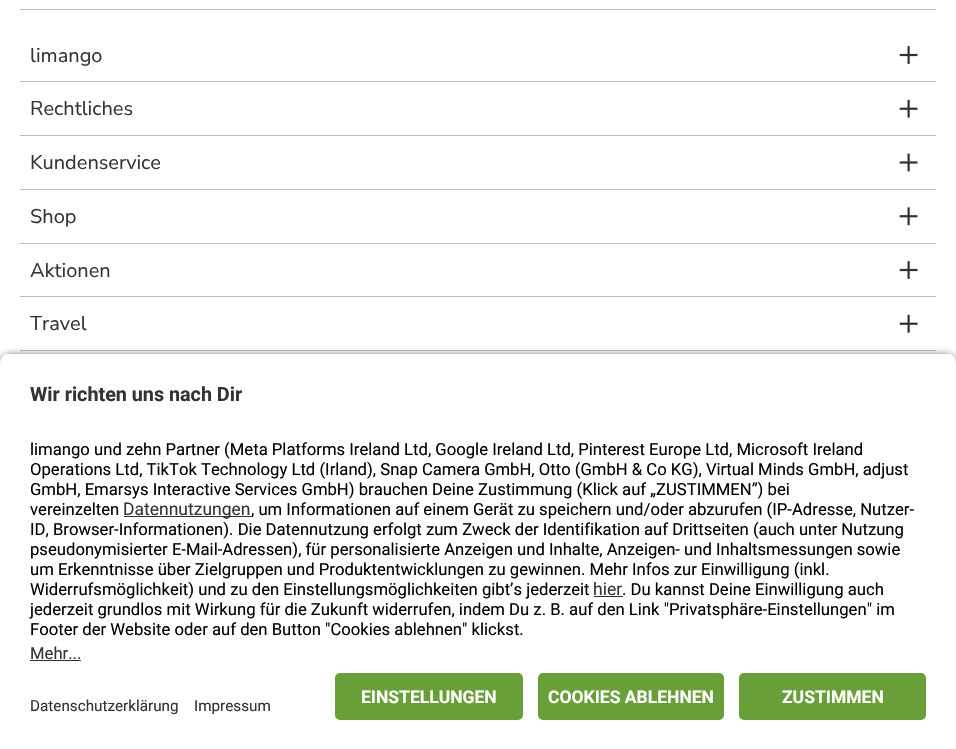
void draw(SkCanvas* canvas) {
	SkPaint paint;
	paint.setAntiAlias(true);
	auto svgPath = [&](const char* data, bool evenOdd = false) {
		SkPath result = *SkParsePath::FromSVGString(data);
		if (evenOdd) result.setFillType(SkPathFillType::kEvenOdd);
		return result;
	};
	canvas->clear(0xffffffff);
	paint.setColor(0xffbfbfbf);
	canvas->drawRect(SkRect::MakeXYWH(20, 9, 916, 1), paint);
	SkFont f1(fontMgr->matchFamilyStyle("Nunito Sans", SkFontStyle::Normal()), 20);
	f1.setSubpixel(true);
	paint.setColor(0xff333333);
	canvas->drawString("limango", 30, 62, f1, paint);
	canvas->drawImageRect(SkImages::DeferredFromEncodedData(SkData::MakeFromFileName("img1.png")), SkRect::MakeXYWH(899, 46, 19, 18), SkSamplingOptions());
	paint.setColor(0xffbfbfbf);
	canvas->drawRect(SkRect::MakeXYWH(20, 81, 916, 1), paint);
	paint.setColor(0xff333333);
	canvas->drawString("Rechtliches", 30, 115, f1, paint);
	canvas->drawImageRect(SkImages::DeferredFromEncodedData(SkData::MakeFromFileName("img2.png")), SkRect::MakeXYWH(899, 99, 19, 19), SkSamplingOptions());
	paint.setColor(0xffbfbfbf);
	canvas->drawRect(SkRect::MakeXYWH(20, 135, 916, 1), paint);
	paint.setColor(0xff333333);
	canvas->drawString("Kundenservice", 30, 169, f1, paint);
	canvas->drawImageRect(SkImages::DeferredFromEncodedData(SkData::MakeFromFileName("img3.png")), SkRect::MakeXYWH(899, 153, 19, 19), SkSamplingOptions());
	paint.setColor(0xffbfbfbf);
	canvas->drawRect(SkRect::MakeXYWH(20, 189, 916, 1), paint);
	paint.setColor(0xff333333);
	canvas->drawString("Shop", 30, 223, f1, paint);
	canvas->drawImageRect(SkImages::DeferredFromEncodedData(SkData::MakeFromFileName("img4.png")), SkRect::MakeXYWH(899, 207, 19, 19), SkSamplingOptions());
	paint.setColor(0xffbfbfbf);
	canvas->drawRect(SkRect::MakeXYWH(20, 243, 916, 1), paint);
	paint.setColor(0xff333333);
	canvas->drawString("Aktionen", 30, 277, f1, paint);
	canvas->drawImageRect(SkImages::DeferredFromEncodedData(SkData::MakeFromFileName("img1.png")), SkRect::MakeXYWH(899, 261, 19, 18), SkSamplingOptions());
	paint.setColor(0xffbfbfbf);
	canvas->drawRect(SkRect::MakeXYWH(20, 296, 916, 1), paint);
	paint.setColor(0xff333333);
	canvas->drawString("Travel", 30, 330, f1, paint);
	canvas->drawImageRect(SkImages::DeferredFromEncodedData(SkData::MakeFromFileName("img2.png")), SkRect::MakeXYWH(899, 314, 19, 19), SkSamplingOptions());
	paint.setColor(0xffbfbfbf);
	canvas->drawRect(SkRect::MakeXYWH(20, 350, 916, 1), paint);
	paint.setColor(0xcc000000);
	paint.setMaskFilter(SkMaskFilter::MakeBlur(kNormal_SkBlurStyle, 4.5));
	canvas->drawRoundRect(SkRect::MakeXYWH(0, 356, 956, 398), 10, 10, paint);
	paint.setMaskFilter(nullptr);
	canvas->save();
	canvas->clipPath(svgPath("M10 353H946C951.5 353 956 357.5 956 363V663H0V363C0 357.5 4.5 353 10 353Z"), true);
	paint.setColor(0xffffffff);
	canvas->drawRect(SkRect::MakeXYWH(0, 354, 956, 309), paint);
	canvas->restore();
	SkFont f2(fontMgr->matchFamilyStyle("Roboto", SkFontStyle::Bold()), 19.75);
	f2.setSubpixel(true);
	paint.setColor(0xff333333);
	canvas->drawString("Wir richten uns nach Dir", 30, 401, f2, paint);
	SkFont f3(fontMgr->matchFamilyStyle("Roboto", SkFontStyle::Normal()), 16.67);
	f3.setSubpixel(true);
	paint.setColor(0xff000000);
	canvas->drawString("limango und zehn Partner (Meta Platforms Ireland Ltd, Google Ireland Ltd, Pinterest Europe Ltd, Microsoft Ireland", 30, 455, f3, paint);
	canvas->drawString("Operations Ltd, TikTok Technology Ltd (Irland), Snap Camera GmbH, Otto (GmbH & Co KG), Virtual Minds GmbH, adjust", 30, 475, f3, paint);
	canvas->drawString("GmbH, Emarsys Interactive Services GmbH) brauchen Deine Zustimmung (Klick auf „ZUSTIMMEN”) bei", 30, 495, f3, paint);
	canvas->drawString("vereinzelten", 30, 515, f3, paint);
	paint.setColor(0xff303030);
	canvas->drawRect(SkRect::MakeXYWH(124, 516, 127, 1), paint);
	SkFont f4(fontMgr->matchFamilyStyle("Roboto", SkFontStyle::Normal()), 17.5);
	f4.setSubpixel(true);
	paint.setColor(0xff333333);
	canvas->drawString("Datennutzungen", 123, 515, f4, paint);
	paint.setColor(0xff000000);
	canvas->drawString(", um Informationen auf einem Gerät zu speichern und/oder abzurufen (IP-Adresse, Nutzer-", 251, 515, f3, paint);
	canvas->drawString("ID, Browser-Informationen). Die Datennutzung erfolgt zum Zweck der Identifikation auf Drittseiten (auch unter Nutzung", 30, 535, f3, paint);
	canvas->drawString("pseudonymisierter E-Mail-Adressen), für personalisierte Anzeigen und Inhalte, Anzeigen- und Inhaltsmessungen sowie", 30, 555, f3, paint);
	canvas->drawString("um Erkenntnisse über Zielgruppen und Produktentwicklungen zu gewinnen. Mehr Infos zur Einwilligung (inkl.", 30, 575, f3, paint);
	canvas->drawString("Widerrufsmöglichkeit) und zu den Einstellungsmöglichkeiten gibt’s jederzeit", 30, 595, f3, paint);
	paint.setColor(0xff333333);
	canvas->drawString("hier", 593, 595, f4, paint);
	paint.setColor(0xff303030);
	canvas->drawRect(SkRect::MakeXYWH(594, 596, 29, 1), paint);
	paint.setColor(0xff000000);
	canvas->drawString(". Du kannst Deine Einwilligung auch", 622, 595, f3, paint);
	canvas->drawString("jederzeit grundlos mit Wirkung für die Zukunft widerrufen, indem Du z. B. auf den Link \"Privatsphäre-Einstellungen\" im", 30, 615, f3, paint);
	canvas->drawString("Footer der Website oder auf den Button \"Cookies ablehnen\" klickst.", 30, 635, f3, paint);
	paint.setColor(0xff333333);
	canvas->drawString("Mehr...", 30, 659, f3, paint);
	paint.setColor(0xff303030);
	canvas->drawRect(SkRect::MakeXYWH(30, 660, 51, 1), paint);
	paint.setColor(0xffffffff);
	canvas->drawRect(SkRect::MakeXYWH(0, 663, 956, 86), paint);
	paint.setColor(0xff689f38);
	canvas->drawRoundRect(SkRect::MakeXYWH(335, 673, 188, 47), 5, 5, paint);
	SkFont f5(fontMgr->matchFamilyStyle("Roboto", SkFontStyle::Bold()), 17.5);
	f5.setSubpixel(true);
	paint.setColor(0xffffffff);
	canvas->drawString("EINSTELLUNGEN", 361, 703, f5, paint);
	paint.setColor(0xff689f38);
	canvas->drawRoundRect(SkRect::MakeXYWH(538, 673, 186, 47), 5, 5, paint);
	paint.setColor(0xffffffff);
	canvas->drawString("COOKIES ABLEHNEN", 548, 703, f5, paint);
	paint.setColor(0xff689f38);
	canvas->drawRoundRect(SkRect::MakeXYWH(739, 673, 187, 47), 5, 5, paint);
	paint.setColor(0xffffffff);
	canvas->drawString("ZUSTIMMEN", 782, 703, f5, paint);
	SkFont f6(fontMgr->matchFamilyStyle("Roboto", SkFontStyle::Normal()), 15.25);
	f6.setSubpixel(true);
	paint.setColor(0xff333333);
	canvas->drawString("Datenschutzerklärung", 30, 711, f6, paint);
	canvas->drawString("Impressum", 194, 711, f6, paint);
}
